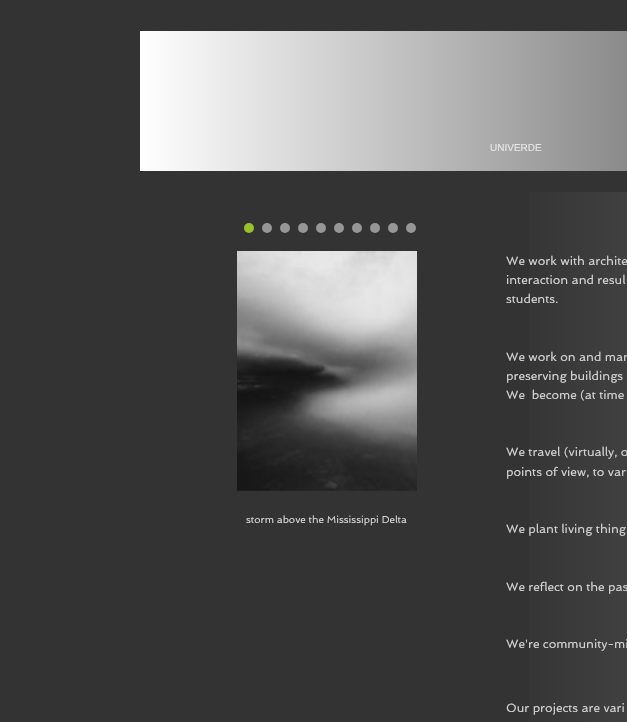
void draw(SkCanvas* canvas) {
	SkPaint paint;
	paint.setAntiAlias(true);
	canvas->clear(0xff333333);
	{
		const SkColor colors[] = {0xffffffff, 0xff000000};
		const float stops[] = {0, 1};
		const SkPoint ends[] = {{140, 101}, {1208, 101}};
		paint.setShader(SkGradientShader::MakeLinear(ends, colors, stops, 2, SkTileMode::kClamp));
		paint.setAlpha(255);
	}
	canvas->drawRect(SkRect::MakeXYWH(140, 31, 487, 140), paint);
	SkFont f1(fontMgr->matchFamilyStyle("Liberation Sans", SkFontStyle::Normal()), 10);
	f1.setSubpixel(true);
	paint.setShader(nullptr);
	paint.setColor(0xffe5e5e5);
	canvas->drawString("UNIVERDE", 490, 151, f1, paint);
	paint.setColor(0xff98c22a);
	canvas->drawCircle(249, 228, 5, paint);
	paint.setColor(0xff969696);
	canvas->drawCircle(267, 228, 5, paint);
	canvas->drawCircle(285, 228, 5, paint);
	canvas->drawCircle(303, 228, 5, paint);
	canvas->drawCircle(321, 228, 5, paint);
	canvas->drawCircle(339, 228, 5, paint);
	canvas->drawCircle(357, 228, 5, paint);
	canvas->drawCircle(375, 228, 5, paint);
	canvas->drawCircle(393, 228, 5, paint);
	canvas->drawCircle(411, 228, 5, paint);
	canvas->drawImageRect(SkImages::DeferredFromEncodedData(SkData::MakeFromFileName("img1.png")), SkRect::MakeXYWH(237, 251, 180, 240), SkSamplingOptions());
	{
		const SkColor colors[] = {0xff333333, 0xff7f7f7f};
		const float stops[] = {0, 1};
		const SkPoint ends[] = {{506, 517}, {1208, 517}};
		paint.setShader(SkGradientShader::MakeLinear(ends, colors, stops, 2, SkTileMode::kClamp));
		paint.setAlpha(255);
	}
	canvas->drawRect(SkRect::MakeXYWH(529, 192, 98, 530), paint);
	SkFont f2(fontMgr->matchFamilyStyle("Spinnaker", SkFontStyle::Normal()), 12);
	f2.setSubpixel(true);
	paint.setShader(nullptr);
	paint.setColor(0xffd3d3d3);
	canvas->drawString("We work with archite", 506, 265, f2, paint);
	canvas->drawString("interaction and resul", 506, 284, f2, paint);
	canvas->drawString("students.", 506, 303, f2, paint);
	canvas->drawString("We work on and man", 506, 361, f2, paint);
	canvas->drawString("preserving buildings", 506, 380, f2, paint);
	canvas->drawString("We  become (at time", 506, 399, f2, paint);
	canvas->drawString("We travel (virtually, o", 506, 456, f2, paint);
	canvas->drawString("points of view, to var", 506, 476, f2, paint);
	canvas->drawString("We plant living thing", 506, 533, f2, paint);
	canvas->drawString("We reflect on the pas", 506, 591, f2, paint);
	canvas->drawString("We're community-mi", 506, 648, f2, paint);
	canvas->drawString("Our projects are vari", 506, 712, f2, paint);
	SkFont f3(fontMgr->matchFamilyStyle("Spinnaker", SkFontStyle::Normal()), 10);
	f3.setSubpixel(true);
	canvas->drawString("storm above the Mississippi Delta", 246, 523, f3, paint);
}
